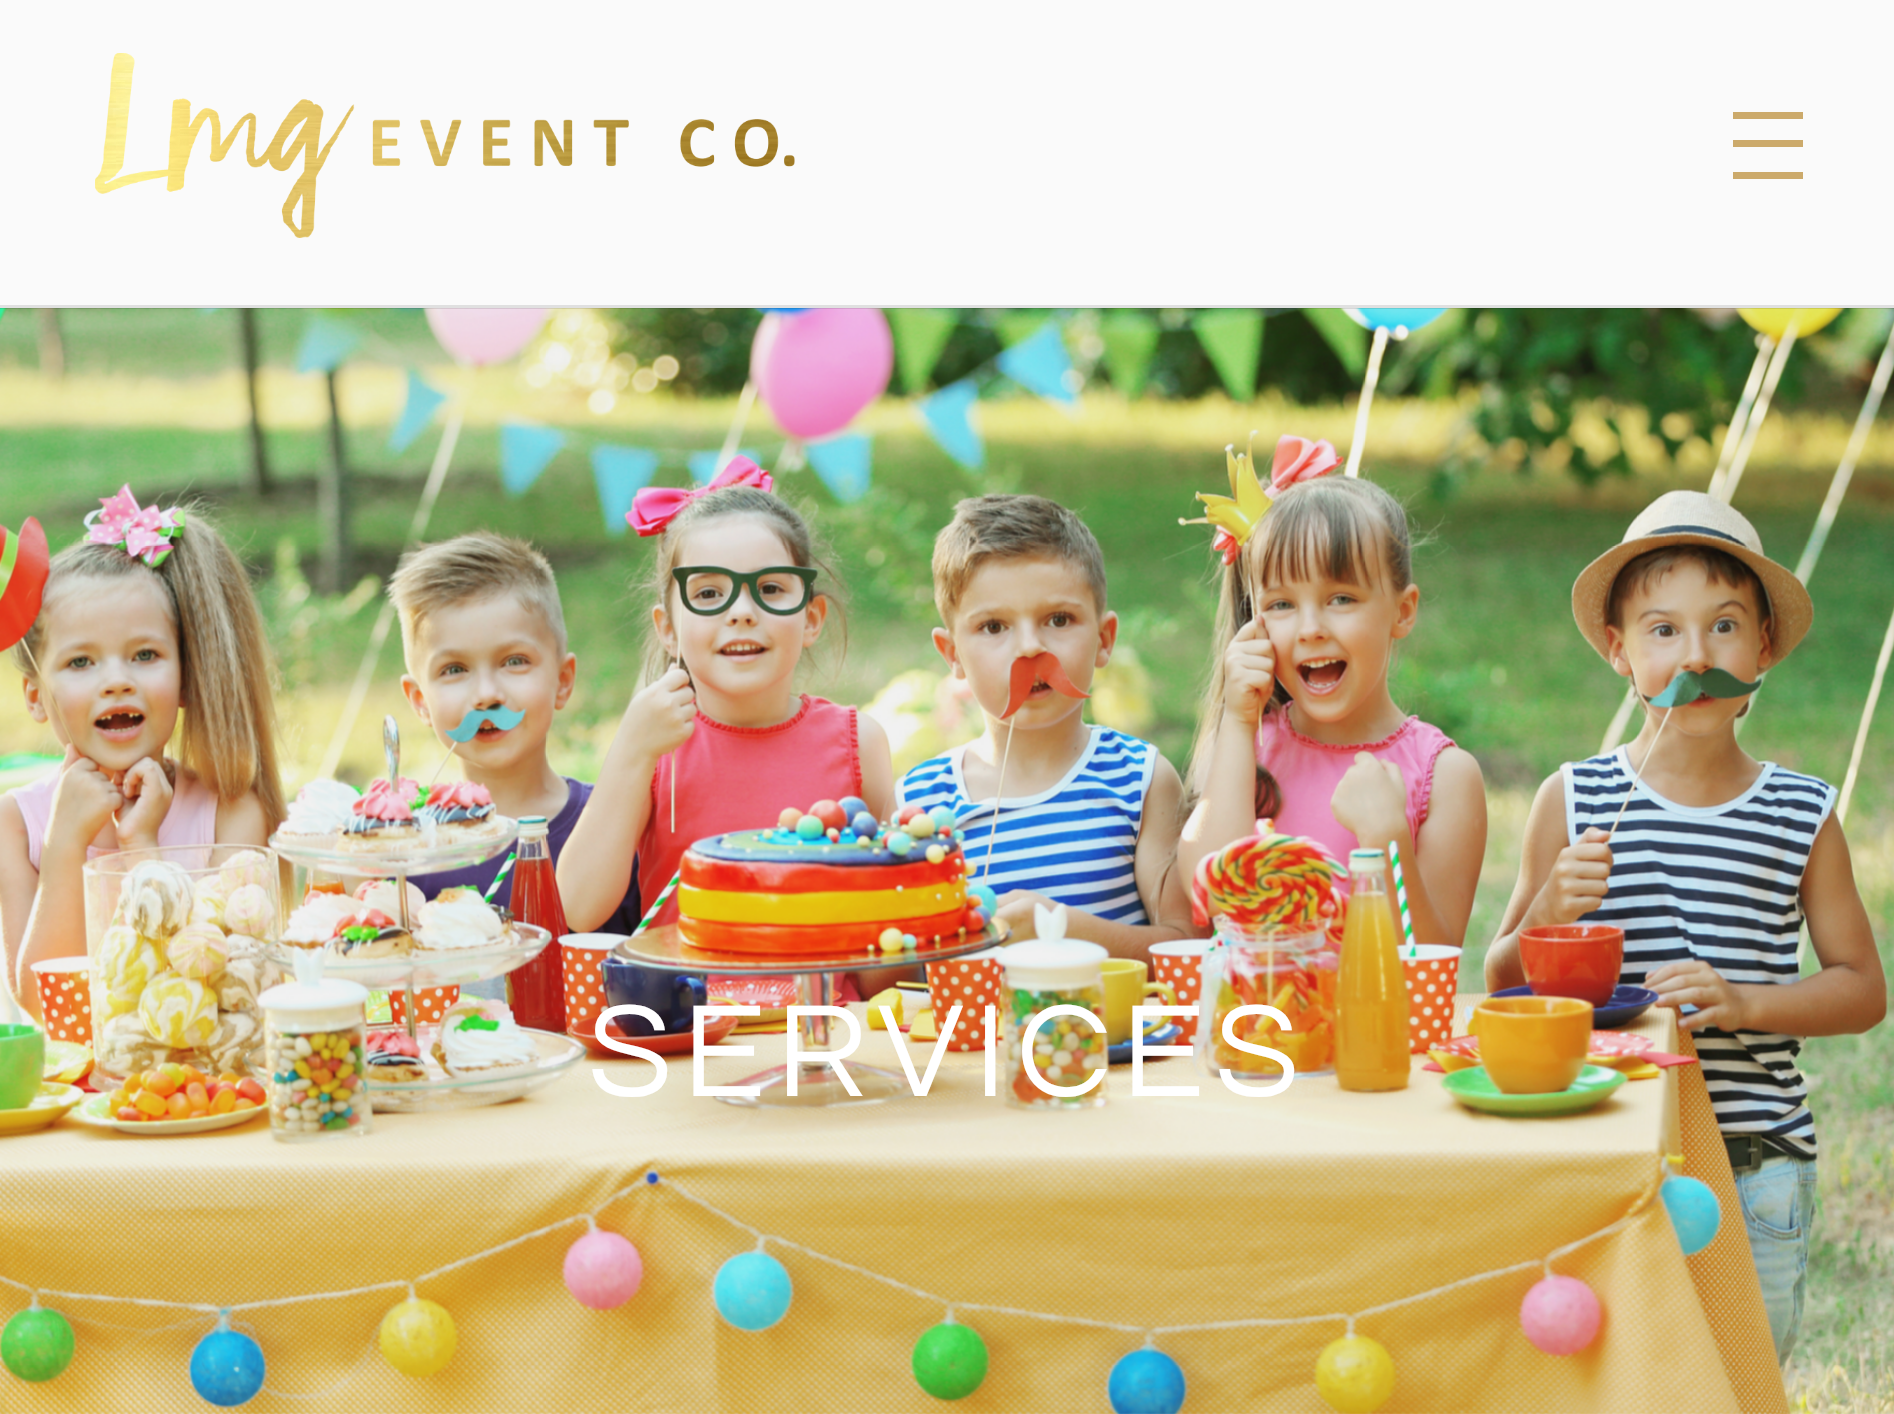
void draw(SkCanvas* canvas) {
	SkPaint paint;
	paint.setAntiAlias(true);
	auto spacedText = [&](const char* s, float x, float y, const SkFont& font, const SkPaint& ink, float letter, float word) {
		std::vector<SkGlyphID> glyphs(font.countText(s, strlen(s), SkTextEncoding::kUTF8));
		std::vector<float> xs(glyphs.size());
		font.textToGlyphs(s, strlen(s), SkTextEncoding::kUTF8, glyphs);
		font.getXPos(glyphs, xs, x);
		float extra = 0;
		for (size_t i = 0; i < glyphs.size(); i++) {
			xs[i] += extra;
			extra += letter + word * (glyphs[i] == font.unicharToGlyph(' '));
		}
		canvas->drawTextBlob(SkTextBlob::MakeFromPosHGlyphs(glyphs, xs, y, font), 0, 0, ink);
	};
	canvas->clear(0xffffffff);
	paint.setColor(0xfffafafa);
	canvas->drawRect(SkRect::MakeXYWH(0, 0, 1894, 308), paint);
	canvas->drawImageRect(SkImages::DeferredFromEncodedData(SkData::MakeFromFileName("img2.png")), SkRect::MakeXYWH(0, 308, 1894, 1106), SkSamplingOptions());
	paint.setColor(0x1a000000);
	canvas->drawRect(SkRect::MakeXYWH(0, 305, 1894, 4), paint);
	canvas->drawImageRect(SkImages::DeferredFromEncodedData(SkData::MakeFromFileName("img1.png")), SkRect::MakeXYWH(95, 53, 700, 185), SkSamplingOptions());
	paint.setColor(0xffccaa6b);
	canvas->drawRect(SkRect::MakeXYWH(1733, 172, 70, 7), paint);
	canvas->drawRect(SkRect::MakeXYWH(1733, 112, 70, 7), paint);
	canvas->drawRect(SkRect::MakeXYWH(1733, 140, 70, 7), paint);
	SkFont f1(fontMgr->matchFamilyStyle("Questrial", SkFontStyle::Normal()), 136.5);
	f1.setSubpixel(true);
	paint.setColor(0xffffffff);
	spacedText("SERVICES", 588, 1096, f1, paint, 10.5, 0);
}
